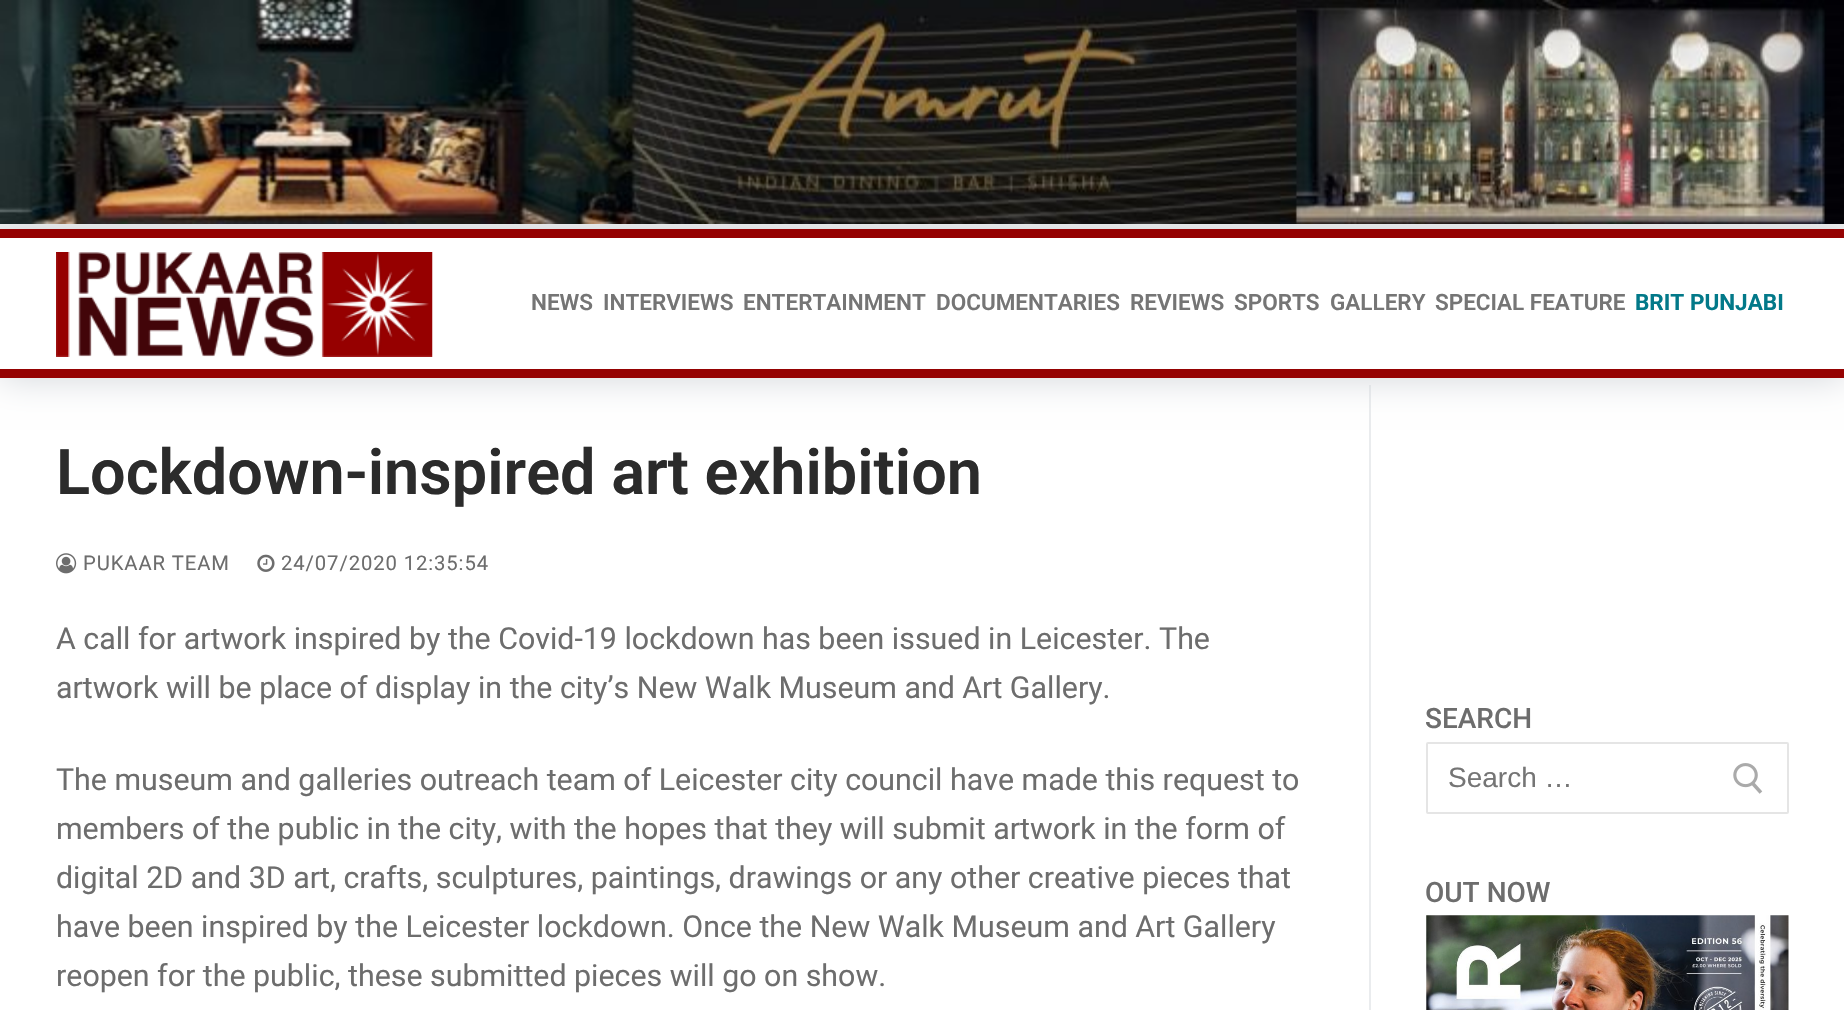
void draw(SkCanvas* canvas) {
	SkPaint paint;
	paint.setAntiAlias(true);
	auto spacedText = [&](const char* s, float x, float y, const SkFont& font, const SkPaint& ink, float letter, float word) {
		std::vector<SkGlyphID> glyphs(font.countText(s, strlen(s), SkTextEncoding::kUTF8));
		std::vector<float> xs(glyphs.size());
		font.textToGlyphs(s, strlen(s), SkTextEncoding::kUTF8, glyphs);
		font.getXPos(glyphs, xs, x);
		float extra = 0;
		for (size_t i = 0; i < glyphs.size(); i++) {
			xs[i] += extra;
			extra += letter + word * (glyphs[i] == font.unicharToGlyph(' '));
		}
		canvas->drawTextBlob(SkTextBlob::MakeFromPosHGlyphs(glyphs, xs, y, font), 0, 0, ink);
	};
	canvas->clear(0xffffffff);
	paint.setColor(0xfff0f0f0);
	canvas->drawRect(SkRect::MakeXYWH(0, 224, 1844, 5), paint);
	paint.setColor(0xffeaecee);
	canvas->drawRect(SkRect::MakeXYWH(1369, 385, 2, 625), paint);
	paint.setColor(0xffd1d5da);
	paint.setMaskFilter(SkMaskFilter::MakeBlur(kNormal_SkBlurStyle, 17.5));
	canvas->drawRect(SkRect::MakeXYWH(0, 229, 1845, 149), paint);
	paint.setMaskFilter(nullptr);
	canvas->drawImageRect(SkImages::DeferredFromEncodedData(SkData::MakeFromFileName("img1.png")), SkRect::MakeXYWH(0, 0, 1844, 224), SkSamplingOptions());
	paint.setColor(0xffffffff);
	canvas->drawRect(SkRect::MakeXYWH(0, 238, 1844, 131), paint);
	paint.setColor(0xff950202);
	canvas->drawRect(SkRect::MakeXYWH(0, 229, 1844, 9), paint);
	canvas->drawRect(SkRect::MakeXYWH(0, 369, 1844, 9), paint);
	canvas->drawImageRect(SkImages::DeferredFromEncodedData(SkData::MakeFromFileName("img2.png")), SkRect::MakeXYWH(56, 252, 377, 105), SkSamplingOptions());
	SkFont f1(fontMgr->matchFamilyStyle("Roboto", SkFontStyle(600, SkFontStyle::kNormal_Width, SkFontStyle::kUpright_Slant)), 22.5);
	f1.setSubpixel(true);
	paint.setColor(0xff757575);
	canvas->drawString("NEWS", 531, 310, f1, paint);
	canvas->drawString("INTERVIEWS", 603, 310, f1, paint);
	canvas->drawString("ENTERTAINMENT", 743, 310, f1, paint);
	canvas->drawString("DOCUMENTARIES", 936, 310, f1, paint);
	canvas->drawString("REVIEWS", 1130, 310, f1, paint);
	canvas->drawString("SPORTS", 1234, 310, f1, paint);
	canvas->drawString("GALLERY", 1330, 310, f1, paint);
	canvas->drawString("SPECIAL FEATURE", 1435, 310, f1, paint);
	SkFont f2(fontMgr->matchFamilyStyle("Roboto", SkFontStyle::Bold()), 22.5);
	f2.setSubpixel(true);
	paint.setColor(0xff027989);
	canvas->drawString("BRIT PUNJABI", 1635, 310, f2, paint);
	SkFont f3(fontMgr->matchFamilyStyle("Roboto", SkFontStyle(600, SkFontStyle::kNormal_Width, SkFontStyle::kUpright_Slant)), 63);
	f3.setSubpixel(true);
	paint.setColor(0xff2b2b2b);
	canvas->drawString("Lockdown-inspired art exhibition", 56, 494, f3, paint);
	canvas->drawImageRect(SkImages::DeferredFromEncodedData(SkData::MakeFromFileName("img3.png")), SkRect::MakeXYWH(56, 553, 21, 21), SkSamplingOptions());
	SkFont f4(fontMgr->matchFamilyStyle("Roboto", SkFontStyle::Normal()), 20.25);
	f4.setSubpixel(true);
	paint.setColor(0xff6d6d6d);
	spacedText("PUKAAR TEAM", 83, 570, f4, paint, 0.9, 0);
	canvas->drawImageRect(SkImages::DeferredFromEncodedData(SkData::MakeFromFileName("img4.png")), SkRect::MakeXYWH(257, 554, 18, 18), SkSamplingOptions());
	spacedText("24/07/2020 12:35:54", 281, 570, f4, paint, 0.9, 0);
	SkFont f5(fontMgr->matchFamilyStyle("Roboto", SkFontStyle::Normal()), 30.35);
	f5.setSubpixel(true);
	canvas->drawString("A call for artwork inspired by the Covid-19 lockdown has been issued in Leicester. The", 56, 649, f5, paint);
	canvas->drawString("artwork will be place of display in the city’s New Walk Museum and Art Gallery.", 56, 698, f5, paint);
	canvas->drawString("The museum and galleries outreach team of Leicester city council have made this request to", 56, 790, f5, paint);
	canvas->drawString("members of the public in the city, with the hopes that they will submit artwork in the form of", 56, 839, f5, paint);
	canvas->drawString("digital 2D and 3D art, crafts, sculptures, paintings, drawings or any other creative pieces that", 56, 888, f5, paint);
	canvas->drawString("have been inspired by the Leicester lockdown. Once the New Walk Museum and Art Gallery", 56, 937, f5, paint);
	canvas->drawString("reopen for the public, these submitted pieces will go on show.", 56, 986, f5, paint);
	SkFont f6(fontMgr->matchFamilyStyle("Roboto", SkFontStyle(500, SkFontStyle::kNormal_Width, SkFontStyle::kUpright_Slant)), 28);
	f6.setSubpixel(true);
	canvas->drawString("SEARCH", 1425, 728, f6, paint);
	paint.setStroke(true);
	paint.setStrokeWidth(2);
	paint.setColor(0xffe5e5e5);
	canvas->drawRoundRect(SkRect::MakeXYWH(1427, 743, 361, 70), 1, 1, paint);
	SkFont f7(fontMgr->matchFamilyStyle("Liberation Sans", SkFontStyle::Normal()), 28);
	f7.setSubpixel(true);
	paint.setStroke(false);
	paint.setColor(0xff757575);
	canvas->drawString("Search …", 1448, 787, f7, paint);
	canvas->drawImageRect(SkImages::DeferredFromEncodedData(SkData::MakeFromFileName("img5.png")), SkRect::MakeXYWH(1733, 763, 30, 31), SkSamplingOptions());
	paint.setColor(0xff6d6d6d);
	canvas->drawString("OUT NOW", 1425, 902, f6, paint);
	canvas->drawImageRect(SkImages::DeferredFromEncodedData(SkData::MakeFromFileName("img6.png")), SkRect::MakeXYWH(1426, 915, 363, 95), SkSamplingOptions());
}
